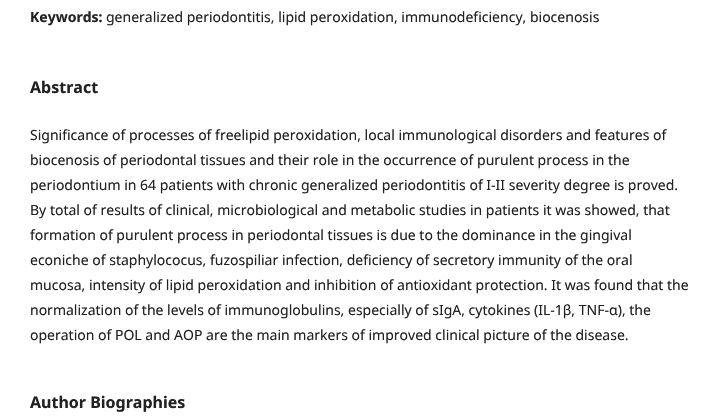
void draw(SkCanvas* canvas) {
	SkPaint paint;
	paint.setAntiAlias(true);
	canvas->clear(0xffffffff);
	SkFont f1(fontMgr->matchFamilyStyle("Noto Sans", SkFontStyle::Bold()), 14);
	f1.setSubpixel(true);
	paint.setColor(0xff212121);
	canvas->drawString("Keywords:", 30, 22, f1, paint);
	SkFont f2(fontMgr->matchFamilyStyle("Noto Sans", SkFontStyle::Normal()), 14);
	f2.setSubpixel(true);
	canvas->drawString("generalized periodontitis, lipid peroxidation, immunodeficiency, biocenosis", 106, 22, f2, paint);
	SkFont f3(fontMgr->matchFamilyStyle("Noto Sans", SkFontStyle::Bold()), 16);
	f3.setSubpixel(true);
	canvas->drawString("Abstract", 30, 93, f3, paint);
	canvas->drawString("Significance of processes of freelipid peroxidation, local immunological disorders and features of", 30, 140, f2, paint);
	canvas->drawString("biocenosis of periodontal tissues and their role in the occurrence of purulent process in the", 30, 165, f2, paint);
	canvas->drawString("periodontium in 64 patients with chronic generalized periodontitis of I-II severity degree is proved.", 30, 190, f2, paint);
	canvas->drawString("By total of results of clinical, microbiological and metabolic studies in patients it was showed, that", 30, 215, f2, paint);
	canvas->drawString("formation of purulent process in periodontal tissues is due to the dominance in the gingival", 30, 240, f2, paint);
	canvas->drawString("econiche of staphylococus, fuzospiliar infection, deficiency of secretory immunity of the oral", 30, 265, f2, paint);
	canvas->drawString("mucosa, intensity of lipid peroxidation and inhibition of antioxidant protection. It was found that the", 30, 290, f2, paint);
	canvas->drawString("normalization of the levels of immunoglobulins, especially of sIgA, cytokines (IL-1β, TNF-α), the", 30, 315, f2, paint);
	canvas->drawString("operation of POL and AOP are the main markers of improved clinical picture of the disease.", 30, 340, f2, paint);
	canvas->drawString("Author Biographies", 30, 408, f3, paint);
}
